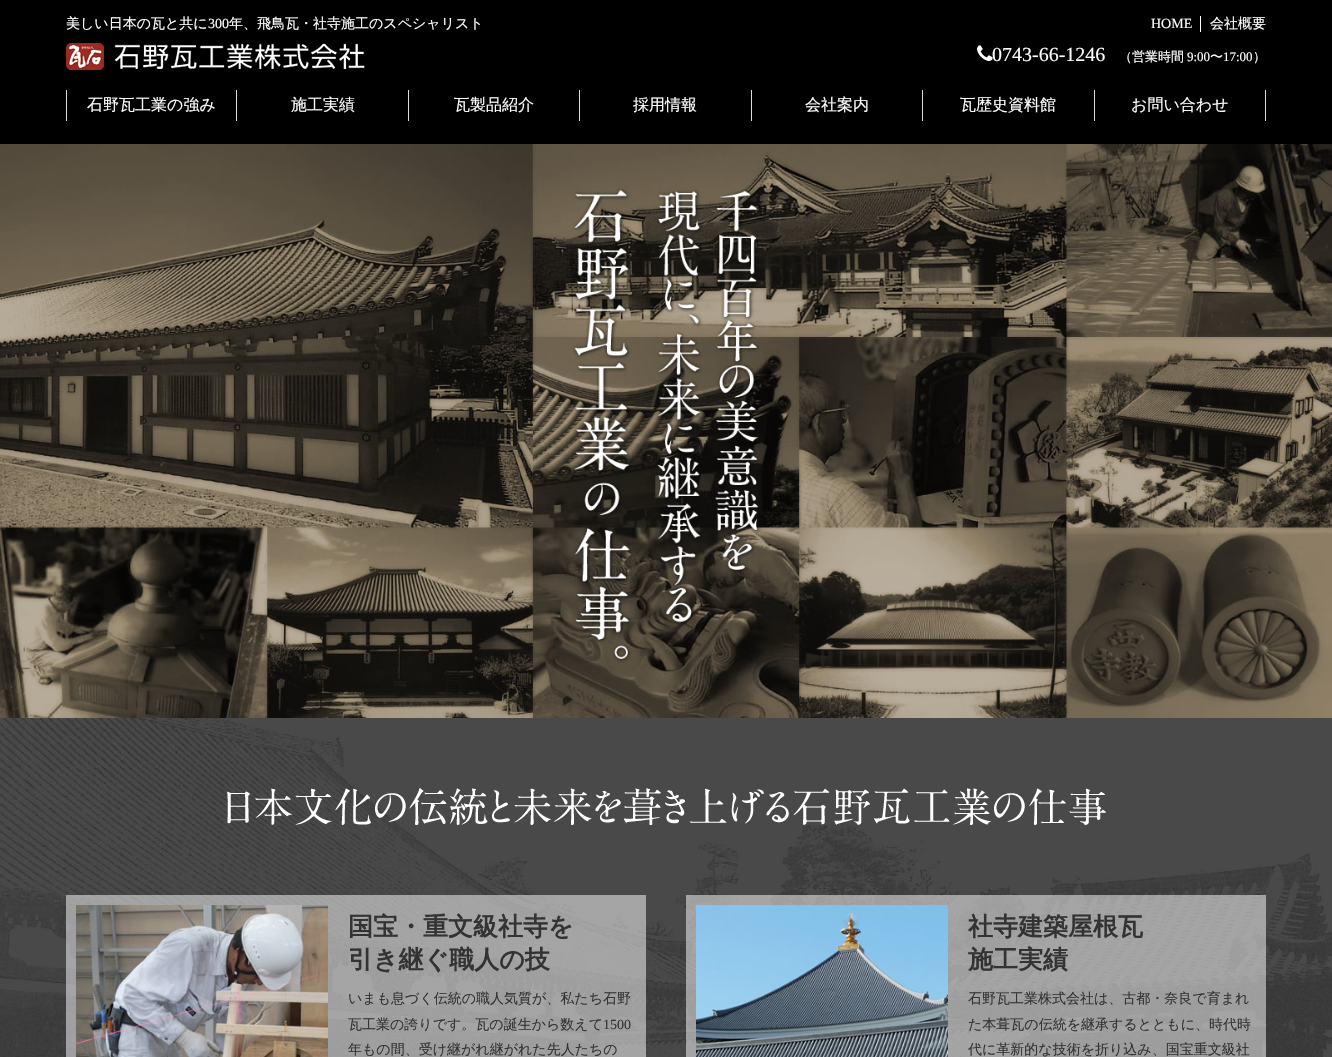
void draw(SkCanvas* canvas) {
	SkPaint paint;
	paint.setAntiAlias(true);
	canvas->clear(0xff000000);
	SkFont f1(fontMgr->matchFamilyStyle("WenQuanYi Zen Hei", SkFontStyle(500, SkFontStyle::kNormal_Width, SkFontStyle::kUpright_Slant)), 14);
	f1.setSubpixel(true);
	paint.setColor(0xffffffff);
	canvas->drawString("美しい日本の瓦と共に", 66, 28, f1, paint);
	SkFont f2(fontMgr->matchFamilyStyle("Liberation Serif", SkFontStyle::Normal()), 14);
	f2.setSubpixel(true);
	canvas->drawString("300", 208, 28, f2, paint);
	canvas->drawString("年、飛鳥瓦・社寺施工のスペシャリスト", 229, 28, f1, paint);
	canvas->drawImageRect(SkImages::DeferredFromEncodedData(SkData::MakeFromFileName("img1.png")), SkRect::MakeXYWH(66, 43, 299, 27), SkSamplingOptions());
	canvas->drawRect(SkRect::MakeXYWH(1200, 16, 1, 16), paint);
	canvas->drawString("HOME", 1151, 28, f2, paint);
	canvas->drawString("会社概要", 1210, 28, f1, paint);
	canvas->drawImageRect(SkImages::DeferredFromEncodedData(SkData::MakeFromFileName("img2.png")), SkRect::MakeXYWH(977, 45, 16, 16), SkSamplingOptions());
	SkFont f3(fontMgr->matchFamilyStyle("Liberation Serif", SkFontStyle::Normal()), 20);
	f3.setSubpixel(true);
	canvas->drawString("0743-66-1246", 992, 61, f3, paint);
	SkFont f4(fontMgr->matchFamilyStyle("WenQuanYi Zen Hei", SkFontStyle(500, SkFontStyle::kNormal_Width, SkFontStyle::kUpright_Slant)), 13);
	f4.setSubpixel(true);
	canvas->drawString("（営業時間", 1119, 61, f4, paint);
	SkFont f5(fontMgr->matchFamilyStyle("Liberation Serif", SkFontStyle::Normal()), 13);
	f5.setSubpixel(true);
	canvas->drawString("9:00", 1187, 61, f5, paint);
	canvas->drawString("〜", 1210, 61, f4, paint);
	canvas->drawString("17:00", 1223, 61, f5, paint);
	canvas->drawString("）", 1253, 61, f4, paint);
	paint.setColor(0xffdddddd);
	canvas->drawRect(SkRect::MakeXYWH(236, 90, 1, 31), paint);
	canvas->drawRect(SkRect::MakeXYWH(66, 90, 1, 31), paint);
	SkFont f6(fontMgr->matchFamilyStyle("WenQuanYi Zen Hei", SkFontStyle(500, SkFontStyle::kNormal_Width, SkFontStyle::kUpright_Slant)), 16);
	f6.setSubpixel(true);
	paint.setColor(0xffffffff);
	canvas->drawString("石野瓦工業の強み", 87, 110, f6, paint);
	paint.setColor(0xffdddddd);
	canvas->drawRect(SkRect::MakeXYWH(408, 90, 1, 31), paint);
	paint.setColor(0xffffffff);
	canvas->drawString("施工実績", 291, 110, f6, paint);
	paint.setColor(0xffdddddd);
	canvas->drawRect(SkRect::MakeXYWH(579, 90, 1, 31), paint);
	paint.setColor(0xffffffff);
	canvas->drawString("瓦製品紹介", 454, 110, f6, paint);
	paint.setColor(0xffdddddd);
	canvas->drawRect(SkRect::MakeXYWH(751, 90, 1, 31), paint);
	paint.setColor(0xffffffff);
	canvas->drawString("採用情報", 633, 110, f6, paint);
	paint.setColor(0xffdddddd);
	canvas->drawRect(SkRect::MakeXYWH(922, 90, 1, 31), paint);
	paint.setColor(0xffffffff);
	canvas->drawString("会社案内", 805, 110, f6, paint);
	paint.setColor(0xffdddddd);
	canvas->drawRect(SkRect::MakeXYWH(1094, 90, 1, 31), paint);
	paint.setColor(0xffffffff);
	canvas->drawString("瓦歴史資料館", 960, 110, f6, paint);
	paint.setColor(0xffdddddd);
	canvas->drawRect(SkRect::MakeXYWH(1265, 90, 1, 31), paint);
	paint.setColor(0xffffffff);
	canvas->drawString("お問い合わせ", 1131, 110, f6, paint);
	canvas->drawImageRect(SkImages::DeferredFromEncodedData(SkData::MakeFromFileName("img3.png")), SkRect::MakeXYWH(0, 144, 1332, 574), SkSamplingOptions());
	canvas->drawImageRect(SkImages::DeferredFromEncodedData(SkData::MakeFromFileName("img4.png")), SkRect::MakeXYWH(0, 718, 1332, 339), SkSamplingOptions());
	canvas->drawImageRect(SkImages::DeferredFromEncodedData(SkData::MakeFromFileName("img5.png")), SkRect::MakeXYWH(227, 788, 879, 37), SkSamplingOptions());
	paint.setColor(0x80ffffff);
	canvas->drawRect(SkRect::MakeXYWH(66, 895, 580, 162), paint);
	canvas->drawImageRect(SkImages::DeferredFromEncodedData(SkData::MakeFromFileName("img6.png")), SkRect::MakeXYWH(76, 905, 252, 152), SkSamplingOptions());
	SkFont f7(fontMgr->matchFamilyStyle("WenQuanYi Zen Hei", SkFontStyle::Bold()), 25);
	f7.setSubpixel(true);
	paint.setColor(0xff333333);
	canvas->drawString("国宝・重文級社寺を", 348, 935, f7, paint);
	canvas->drawString("引き継ぐ職人の技", 348, 968, f7, paint);
	canvas->drawString("いまも息づく伝統の職人気質が、私たち石野", 348, 1003, f1, paint);
	canvas->drawString("瓦工業の誇りです。瓦の誕生から数えて", 348, 1029, f1, paint);
	canvas->drawString("1500", 603, 1029, f2, paint);
	canvas->drawString("年もの間、受け継がれ継がれた先人たちの", 348, 1054, f1, paint);
	paint.setColor(0x80ffffff);
	canvas->drawRect(SkRect::MakeXYWH(686, 895, 580, 162), paint);
	canvas->drawImageRect(SkImages::DeferredFromEncodedData(SkData::MakeFromFileName("img7.png")), SkRect::MakeXYWH(696, 905, 252, 152), SkSamplingOptions());
	paint.setColor(0xff333333);
	canvas->drawString("社寺建築屋根瓦", 968, 935, f7, paint);
	canvas->drawString("施工実績", 968, 968, f7, paint);
	canvas->drawString("石野瓦工業株式会社は、古都・奈良で育まれ", 968, 1003, f1, paint);
	canvas->drawString("た本葺瓦の伝統を継承するとともに、時代時", 968, 1029, f1, paint);
	canvas->drawString("代に革新的な技術を折り込み、国宝重文級社", 968, 1054, f1, paint);
}
